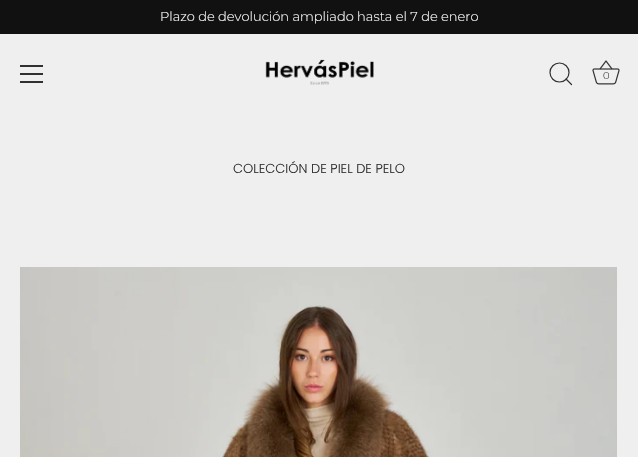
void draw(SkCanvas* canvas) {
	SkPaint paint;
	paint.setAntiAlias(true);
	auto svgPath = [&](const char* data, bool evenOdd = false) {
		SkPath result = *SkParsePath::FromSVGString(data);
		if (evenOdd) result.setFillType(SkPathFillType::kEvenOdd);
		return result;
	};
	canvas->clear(0xffefefef);
	paint.setColor(0xff111111);
	canvas->drawRect(SkRect::MakeXYWH(0, 0, 638, 34), paint);
	SkFont f1(fontMgr->matchFamilyStyle("Montserrat", SkFontStyle(300, SkFontStyle::kNormal_Width, SkFontStyle::kUpright_Slant)), 13);
	f1.setSubpixel(true);
	paint.setColor(0xffffffff);
	canvas->drawString("Plazo de devolución ampliado hasta el 7 de enero", 160, 21, f1, paint);
	paint.setColor(0xff303030);
	canvas->drawRect(SkRect::MakeXYWH(20, 65, 23, 2), paint);
	canvas->drawRect(SkRect::MakeXYWH(20, 73, 23, 2), paint);
	canvas->drawRect(SkRect::MakeXYWH(20, 81, 23, 2), paint);
	canvas->drawImageRect(SkImages::DeferredFromEncodedData(SkData::MakeFromFileName("img1.png")), SkRect::MakeXYWH(265, 59, 109, 26), SkSamplingOptions());
	paint.setStroke(true);
	paint.setStrokeWidth(1.2);
	canvas->drawCircle(559.5, 72.5, 9.5, paint);
	paint.setStrokeCap(SkPaint::kRound_Cap);
	paint.setStrokeJoin(SkPaint::kRound_Join);
	canvas->drawPath(svgPath("M571.5 84.5L566 79"), paint);
	canvas->drawImageRect(SkImages::DeferredFromEncodedData(SkData::MakeFromFileName("img2.png")), SkRect::MakeXYWH(592, 60, 28, 25), SkSamplingOptions());
	SkFont f2(fontMgr->matchFamilyStyle("Montserrat", SkFontStyle(300, SkFontStyle::kNormal_Width, SkFontStyle::kUpright_Slant)), 10);
	f2.setSubpixel(true);
	paint.setStroke(false);
	canvas->drawString("0", 603, 79, f2, paint);
	SkFont f3(fontMgr->matchFamilyStyle("Poppins", SkFontStyle(300, SkFontStyle::kNormal_Width, SkFontStyle::kUpright_Slant)), 13);
	f3.setSubpixel(true);
	canvas->drawString("COLECCIÓN DE PIEL DE PELO", 233, 173, f3, paint);
	canvas->drawImageRect(SkImages::DeferredFromEncodedData(SkData::MakeFromFileName("img3.png")), SkRect::MakeXYWH(20, 267, 597, 190), SkSamplingOptions());
}
